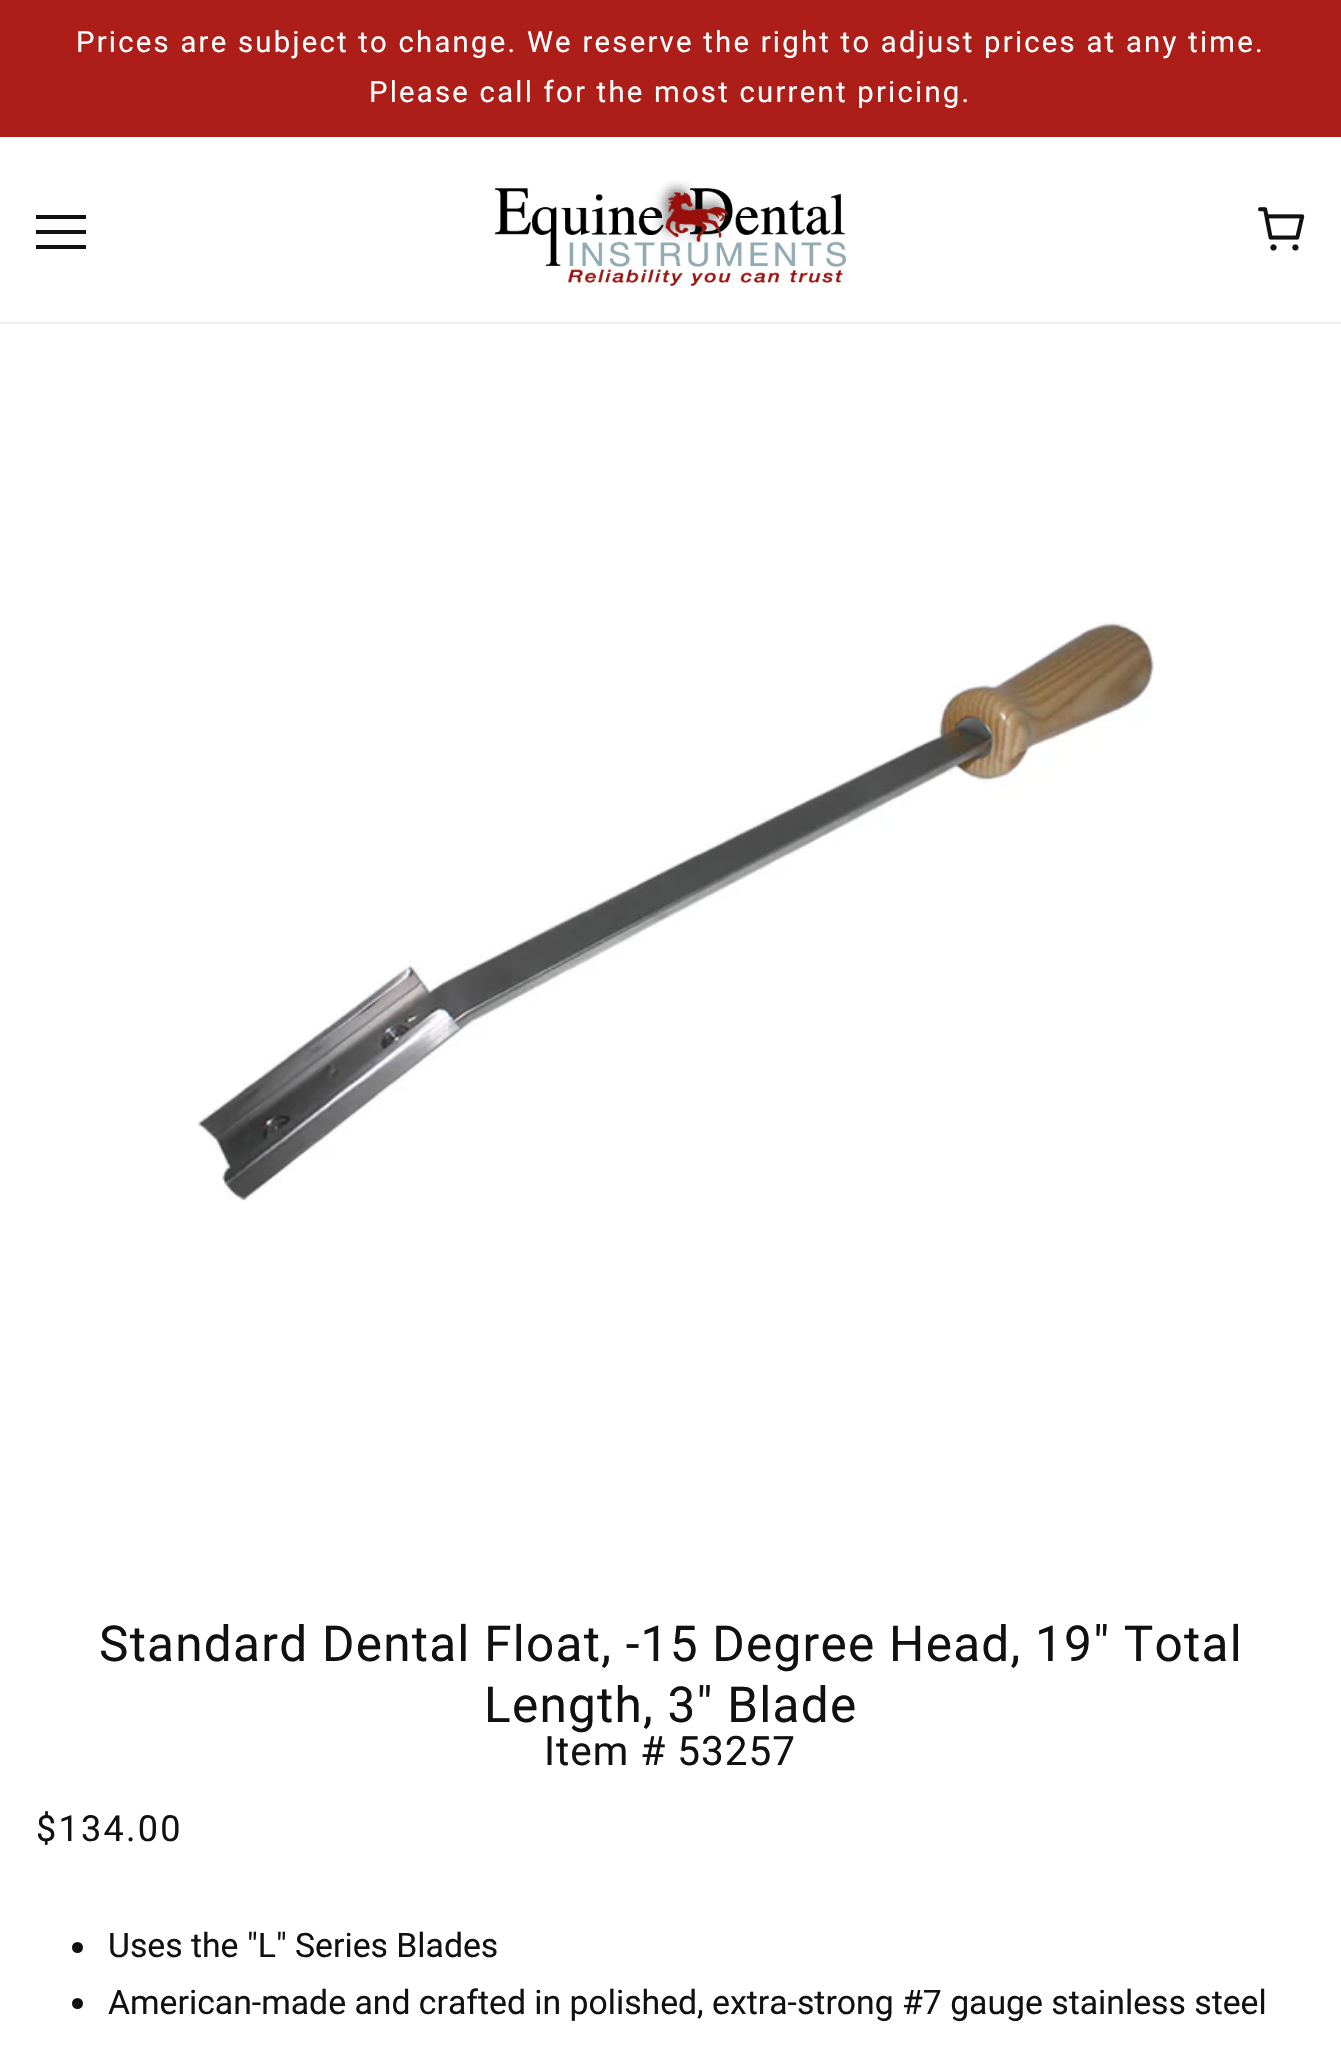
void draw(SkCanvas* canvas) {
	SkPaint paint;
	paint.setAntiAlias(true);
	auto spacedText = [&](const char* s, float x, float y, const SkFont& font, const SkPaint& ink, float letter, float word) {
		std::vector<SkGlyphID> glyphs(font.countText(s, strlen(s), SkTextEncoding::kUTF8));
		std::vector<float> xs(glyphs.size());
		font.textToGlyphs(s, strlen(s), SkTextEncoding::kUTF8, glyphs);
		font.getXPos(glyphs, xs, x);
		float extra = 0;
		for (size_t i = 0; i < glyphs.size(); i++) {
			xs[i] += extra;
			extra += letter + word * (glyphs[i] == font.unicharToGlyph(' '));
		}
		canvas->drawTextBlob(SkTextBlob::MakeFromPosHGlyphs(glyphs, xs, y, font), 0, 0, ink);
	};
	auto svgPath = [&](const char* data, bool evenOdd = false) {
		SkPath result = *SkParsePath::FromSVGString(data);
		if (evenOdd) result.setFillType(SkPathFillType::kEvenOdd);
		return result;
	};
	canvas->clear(0xffffffff);
	paint.setColor(0xffad1e19);
	canvas->drawRect(SkRect::MakeXYWH(0, 0, 1341, 137), paint);
	SkFont f1(fontMgr->matchFamilyStyle("Roboto", SkFontStyle::Normal()), 29.25);
	f1.setSubpixel(true);
	paint.setColor(0xffffffff);
	spacedText("Prices are subject to change. We reserve the right to adjust prices at any time.", 76, 52, f1, paint, 2.25, 0);
	spacedText("Please call for the most current pricing.", 369, 102, f1, paint, 2.25, 0);
	paint.setColor(0xffeeeeee);
	canvas->drawRect(SkRect::MakeXYWH(0, 322, 1341, 2), paint);
	paint.setColor(0xff111111);
	canvas->drawPath(svgPath("M36 219V215H86V219ZM36 234V230H86V234ZM36 249V245H86V249Z"), paint);
	canvas->drawImageRect(SkImages::DeferredFromEncodedData(SkData::MakeFromFileName("img1.png")), SkRect::MakeXYWH(495, 180, 351, 106), SkSamplingOptions());
	canvas->drawImageRect(SkImages::DeferredFromEncodedData(SkData::MakeFromFileName("img2.png")), SkRect::MakeXYWH(1258, 207, 47, 44), SkSamplingOptions());
	canvas->drawImageRect(SkImages::DeferredFromEncodedData(SkData::MakeFromFileName("img3.png")), SkRect::MakeXYWH(197, 622, 958, 579), SkSamplingOptions());
	SkFont f2(fontMgr->matchFamilyStyle("Roboto", SkFontStyle::Normal()), 49.5);
	f2.setSubpixel(true);
	spacedText("Standard Dental Float, -15 Degree Head, 19\" Total", 99, 1661, f2, paint, 1.25, 0);
	spacedText("Length, 3\" Blade", 484, 1722, f2, paint, 1.25, 0);
	SkFont f3(fontMgr->matchFamilyStyle("Roboto", SkFontStyle::Normal()), 40.5);
	f3.setSubpixel(true);
	spacedText("Item # 53257", 544, 1765, f3, paint, 1, 0);
	SkFont f4(fontMgr->matchFamilyStyle("Roboto", SkFontStyle::Normal()), 36);
	f4.setSubpixel(true);
	spacedText("$134.00", 36, 1841, f4, paint, 2.25, 0);
	canvas->drawCircle(77.5, 1947.5, 5.5, paint);
	SkFont f5(fontMgr->matchFamilyStyle("Roboto", SkFontStyle::Normal()), 33.75);
	f5.setSubpixel(true);
	canvas->drawString("Uses the \"L\" Series Blades", 108, 1957, f5, paint);
	canvas->drawCircle(77.5, 2003.5, 5.5, paint);
	canvas->drawString("American-made and crafted in polished, extra-strong #7 gauge stainless steel", 108, 2014, f5, paint);
}
